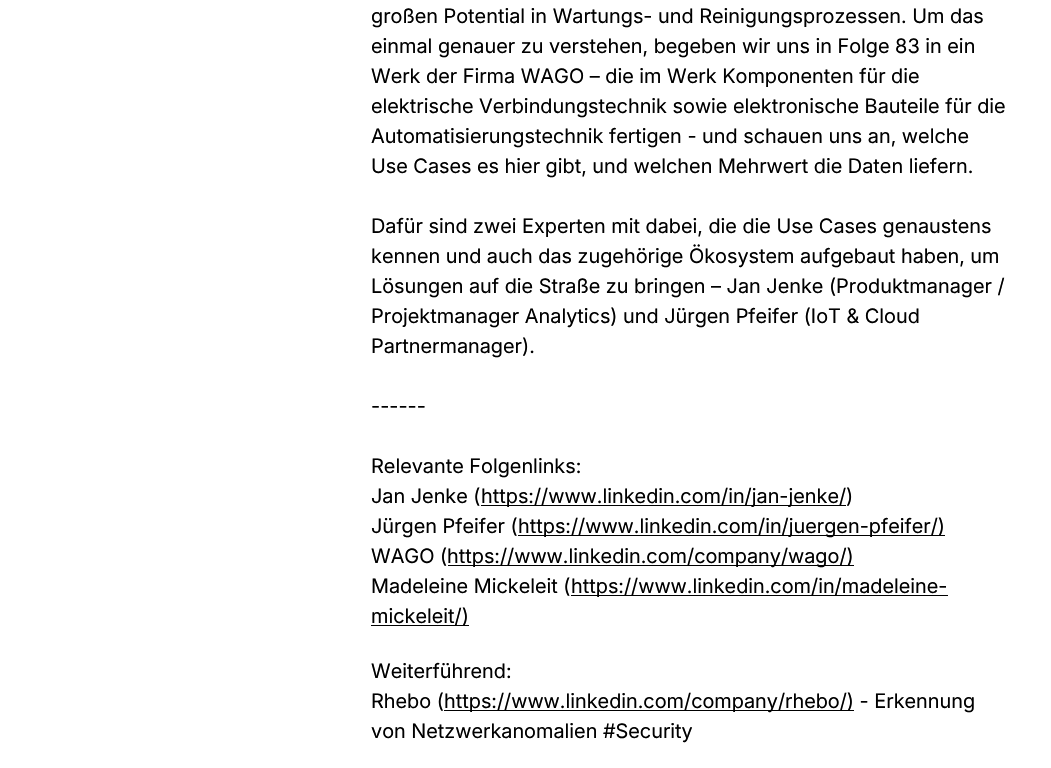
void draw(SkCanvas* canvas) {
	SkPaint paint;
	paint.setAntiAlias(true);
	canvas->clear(0xffffffff);
	SkFont f1(fontMgr->matchFamilyStyle("Inter", SkFontStyle::Normal()), 20);
	f1.setSubpixel(true);
	paint.setColor(0xff000000);
	canvas->drawString("großen Potential in Wartungs- und Reinigungsprozessen. Um das", 371, 23, f1, paint);
	canvas->drawString("einmal genauer zu verstehen, begeben wir uns in Folge 83 in ein", 371, 53, f1, paint);
	canvas->drawString("Werk der Firma WAGO – die im Werk Komponenten für die", 371, 83, f1, paint);
	canvas->drawString("elektrische Verbindungstechnik sowie elektronische Bauteile für die", 371, 113, f1, paint);
	canvas->drawString("Automatisierungstechnik fertigen - und schauen uns an, welche", 371, 143, f1, paint);
	canvas->drawString("Use Cases es hier gibt, und welchen Mehrwert die Daten liefern.", 371, 173, f1, paint);
	canvas->drawString("Dafür sind zwei Experten mit dabei, die die Use Cases genaustens", 371, 233, f1, paint);
	canvas->drawString("kennen und auch das zugehörige Ökosystem aufgebaut haben, um", 371, 263, f1, paint);
	canvas->drawString("Lösungen auf die Straße zu bringen – Jan Jenke (Produktmanager /", 371, 293, f1, paint);
	canvas->drawString("Projektmanager Analytics) und Jürgen Pfeifer (IoT & Cloud", 371, 323, f1, paint);
	canvas->drawString("Partnermanager).", 371, 353, f1, paint);
	canvas->drawString("------", 371, 413, f1, paint);
	canvas->drawString("Relevante Folgenlinks:", 371, 473, f1, paint);
	canvas->drawString("Jan Jenke (", 371, 503, f1, paint);
	canvas->drawRect(SkRect::MakeXYWH(481, 505, 365, 1), paint);
	canvas->drawString("https://www.linkedin.com/in/jan-jenke/)", 481, 503, f1, paint);
	canvas->drawString("Jürgen Pfeifer (", 371, 533, f1, paint);
	canvas->drawRect(SkRect::MakeXYWH(518, 535, 427, 1), paint);
	canvas->drawString("https://www.linkedin.com/in/juergen-pfeifer/)", 518, 533, f1, paint);
	canvas->drawString("WAGO (", 371, 563, f1, paint);
	canvas->drawRect(SkRect::MakeXYWH(448, 565, 406, 1), paint);
	canvas->drawString("https://www.linkedin.com/company/wago/)", 447, 563, f1, paint);
	canvas->drawString("Madeleine Mickeleit (", 371, 593, f1, paint);
	canvas->drawRect(SkRect::MakeXYWH(571, 595, 377, 1), paint);
	canvas->drawString("https://www.linkedin.com/in/madeleine-", 571, 593, f1, paint);
	canvas->drawRect(SkRect::MakeXYWH(371, 625, 98, 1), paint);
	canvas->drawString("mickeleit/)", 371, 623, f1, paint);
	canvas->drawString("Weiterführend:", 371, 678, f1, paint);
	canvas->drawString("Rhebo (", 371, 708, f1, paint);
	canvas->drawRect(SkRect::MakeXYWH(444, 710, 410, 1), paint);
	canvas->drawString("https://www.linkedin.com/company/rhebo/) - Erkennung", 444, 708, f1, paint);
	canvas->drawString("von Netzwerkanomalien #Security", 371, 738, f1, paint);
}
